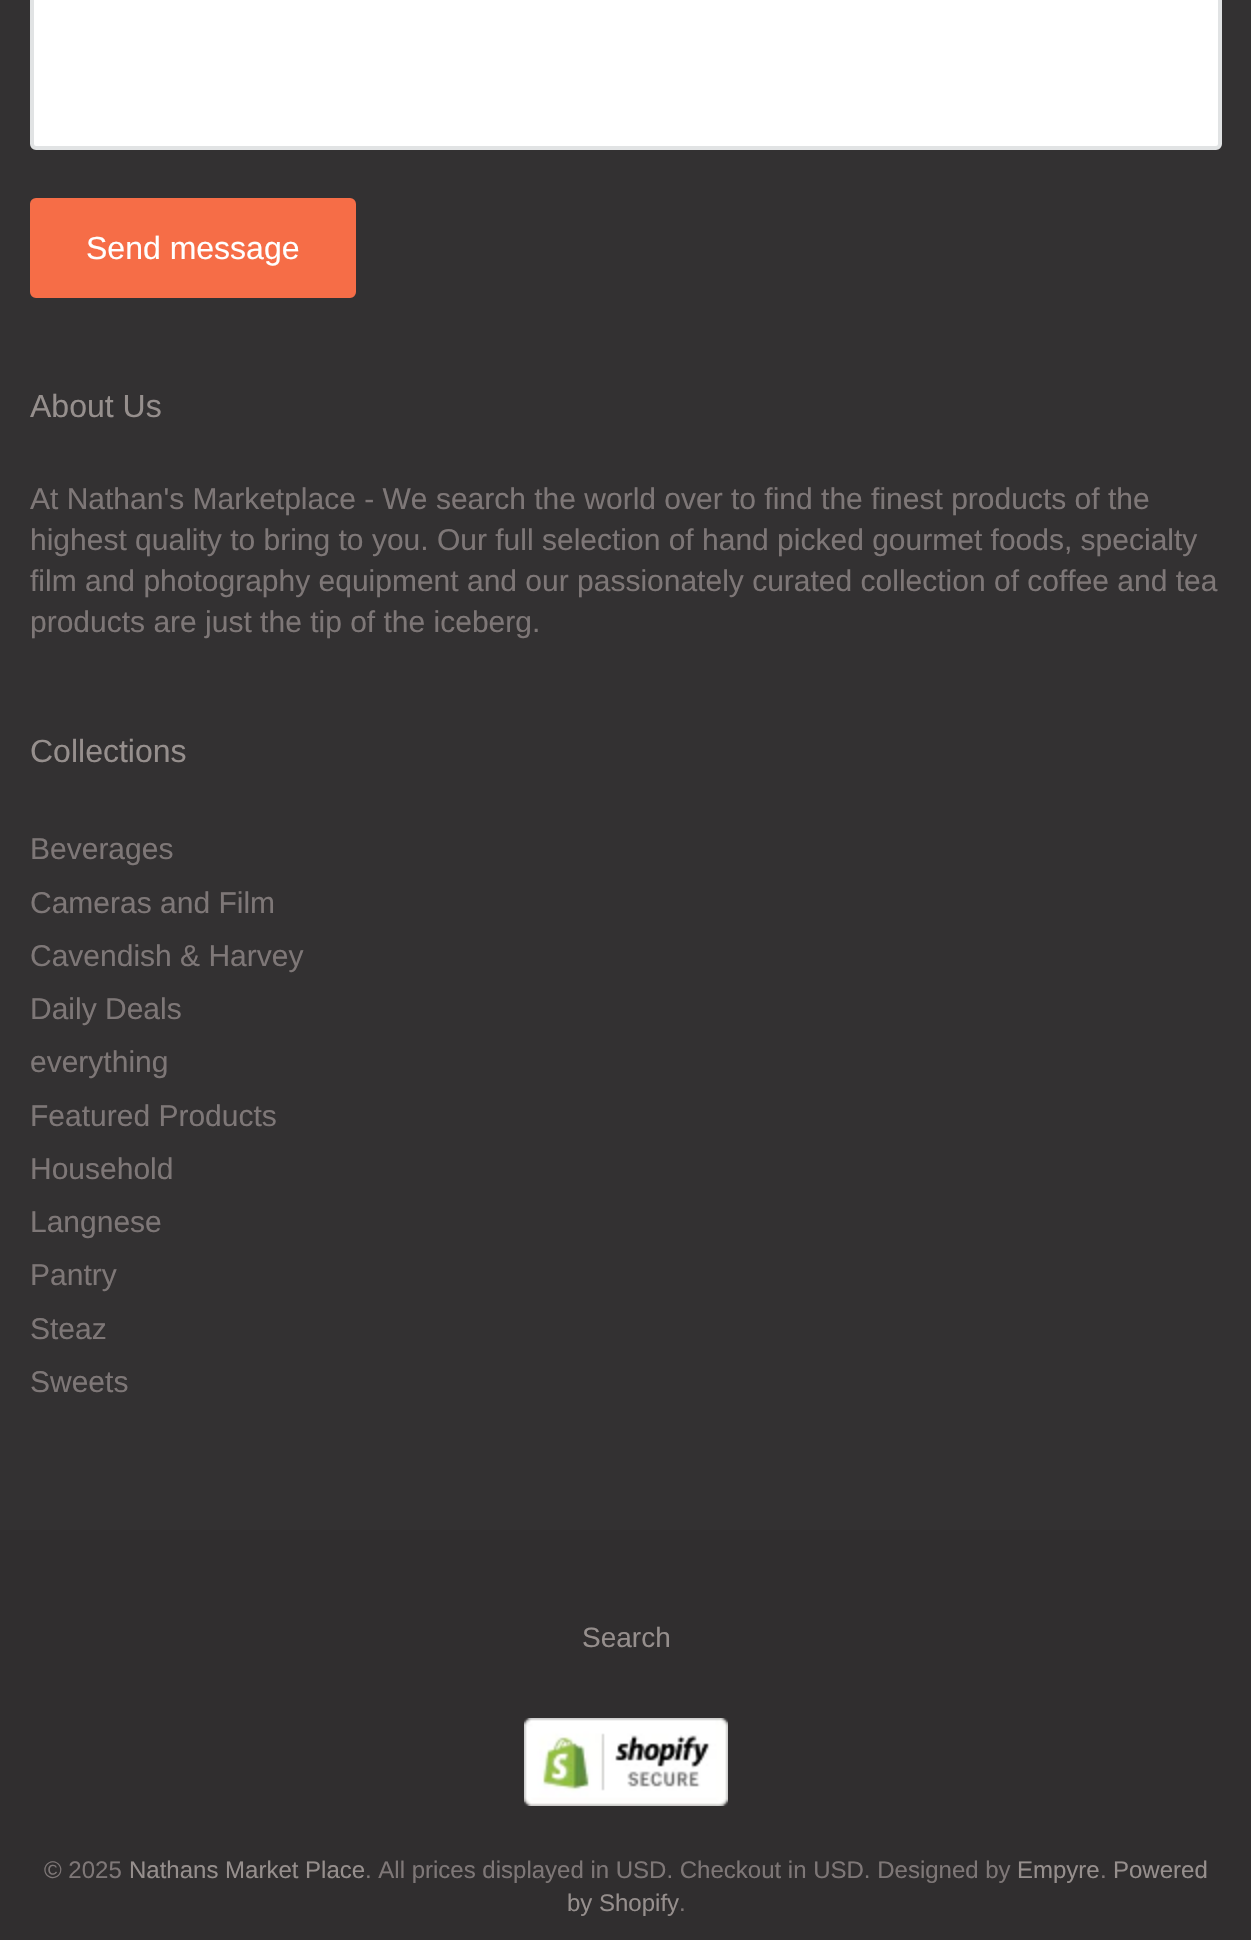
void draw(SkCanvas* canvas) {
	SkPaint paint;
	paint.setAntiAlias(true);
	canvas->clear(0xff302e2f);
	paint.setColor(0xff333132);
	canvas->drawRect(SkRect::MakeXYWH(0, 0, 1251, 1530), paint);
	paint.setColor(0xffffffff);
	canvas->drawRoundRect(SkRect::MakeXYWH(32, -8, 1188, 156), 4, 4, paint);
	paint.setStroke(true);
	paint.setStrokeWidth(4);
	paint.setColor(0xffe1e3e4);
	canvas->drawRoundRect(SkRect::MakeXYWH(32, -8, 1188, 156), 4, 4, paint);
	paint.setStroke(false);
	paint.setColor(0xfff66d47);
	canvas->drawRoundRect(SkRect::MakeXYWH(32, 200, 322, 96), 4, 4, paint);
	paint.setStroke(true);
	canvas->drawRoundRect(SkRect::MakeXYWH(32, 200, 322, 96), 4, 4, paint);
	SkFont f1(fontMgr->matchFamilyStyle("Liberation Sans", SkFontStyle::Normal()), 32);
	f1.setSubpixel(true);
	paint.setStroke(false);
	paint.setColor(0xffffffff);
	canvas->drawString("Send message", 86, 259, f1, paint);
	paint.setColor(0xff968f8d);
	canvas->drawString("About Us", 30, 417, f1, paint);
	SkFont f2(fontMgr->matchFamilyStyle("Liberation Sans", SkFontStyle::Normal()), 30);
	f2.setSubpixel(true);
	paint.setColor(0xff7e7777);
	canvas->drawString("At Nathan's Marketplace - We search the world over to find the finest products of the", 30, 509, f2, paint);
	canvas->drawString("highest quality to bring to you. Our full selection of hand picked gourmet foods, specialty", 30, 550, f2, paint);
	canvas->drawString("film and photography equipment and our passionately curated collection of coffee and tea", 30, 591, f2, paint);
	canvas->drawString("products are just the tip of the iceberg.", 30, 632, f2, paint);
	paint.setColor(0xff968f8d);
	canvas->drawString("Collections", 30, 762, f1, paint);
	paint.setColor(0xff7e7777);
	canvas->drawString("Beverages", 30, 859, f2, paint);
	canvas->drawString("Cameras and Film", 30, 913, f2, paint);
	canvas->drawString("Cavendish & Harvey", 30, 966, f2, paint);
	canvas->drawString("Daily Deals", 30, 1019, f2, paint);
	canvas->drawString("everything", 30, 1072, f2, paint);
	canvas->drawString("Featured Products", 30, 1126, f2, paint);
	canvas->drawString("Household", 30, 1179, f2, paint);
	canvas->drawString("Langnese", 30, 1232, f2, paint);
	canvas->drawString("Pantry", 30, 1285, f2, paint);
	canvas->drawString("Steaz", 30, 1339, f2, paint);
	canvas->drawString("Sweets", 30, 1392, f2, paint);
	SkFont f3(fontMgr->matchFamilyStyle("Liberation Sans", SkFontStyle::Normal()), 28);
	f3.setSubpixel(true);
	paint.setColor(0xff968f8d);
	canvas->drawString("Search", 582, 1647, f3, paint);
	canvas->drawImageRect(SkImages::DeferredFromEncodedData(SkData::MakeFromFileName("img1.png")), SkRect::MakeXYWH(524, 1718, 204, 88), SkSamplingOptions());
	SkFont f4(fontMgr->matchFamilyStyle("Liberation Sans", SkFontStyle::Normal()), 24);
	f4.setSubpixel(true);
	paint.setColor(0xff7e7777);
	canvas->drawString("© 2025", 44, 1878, f4, paint);
	paint.setColor(0xff968f8d);
	canvas->drawString("Nathans Market Place", 129, 1878, f4, paint);
	paint.setColor(0xff7e7777);
	canvas->drawString(". All prices displayed in USD. Checkout in USD. Designed by", 365, 1878, f4, paint);
	paint.setColor(0xff968f8d);
	canvas->drawString("Empyre", 1017, 1878, f4, paint);
	paint.setColor(0xff7e7777);
	canvas->drawString(".", 1100, 1878, f4, paint);
	paint.setColor(0xff968f8d);
	canvas->drawString("Powered", 1113, 1878, f4, paint);
	canvas->drawString("by Shopify", 567, 1911, f4, paint);
	paint.setColor(0xff7e7777);
	canvas->drawString(".", 679, 1911, f4, paint);
}
